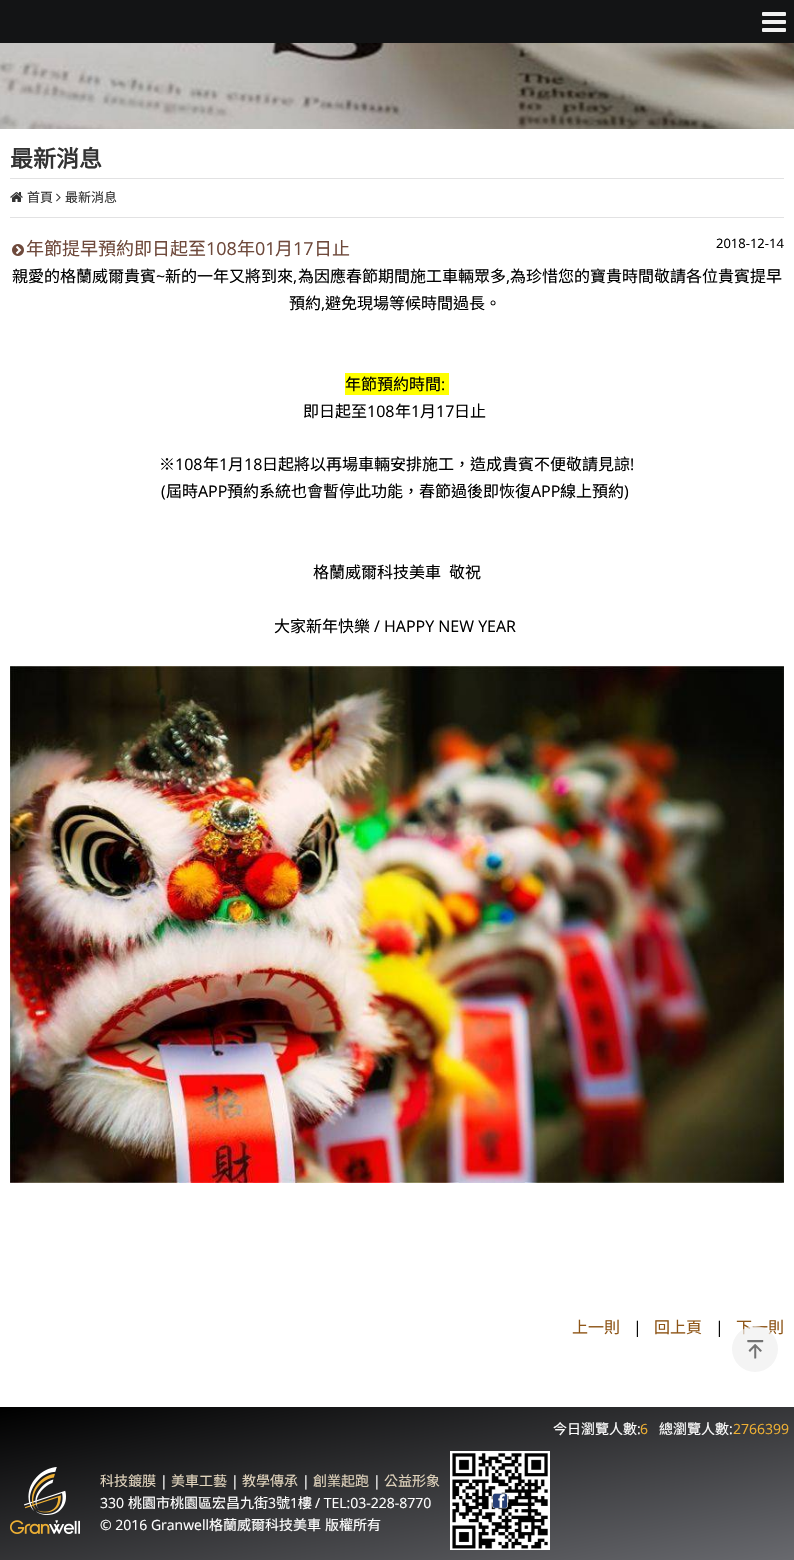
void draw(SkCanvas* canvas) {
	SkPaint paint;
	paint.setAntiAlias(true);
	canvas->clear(0xffffffff);
	paint.setColor(0xff131415);
	canvas->drawRect(SkRect::MakeXYWH(0, 0, 794, 43), paint);
	canvas->drawImageRect(SkImages::DeferredFromEncodedData(SkData::MakeFromFileName("img1.png")), SkRect::MakeXYWH(762, 12, 24, 20), SkSamplingOptions());
	canvas->drawImageRect(SkImages::DeferredFromEncodedData(SkData::MakeFromFileName("img2.png")), SkRect::MakeXYWH(0, 43, 794, 86), SkSamplingOptions());
	SkFont f1(fontMgr->matchFamilyStyle("Noto Sans CJK TC", SkFontStyle::Bold()), 23);
	f1.setSubpixel(true);
	paint.setColor(0xff333333);
	canvas->drawString("最新消息", 10, 167, f1, paint);
	paint.setColor(0xffe2e2e3);
	canvas->drawRect(SkRect::MakeXYWH(10, 178, 774, 1), paint);
	canvas->drawRect(SkRect::MakeXYWH(10, 217, 774, 1), paint);
	canvas->drawImageRect(SkImages::DeferredFromEncodedData(SkData::MakeFromFileName("img3.png")), SkRect::MakeXYWH(10, 192, 13, 10), SkSamplingOptions());
	SkFont f2(fontMgr->matchFamilyStyle("Noto Sans CJK TC", SkFontStyle::Normal()), 13);
	f2.setSubpixel(true);
	paint.setColor(0xff333333);
	canvas->drawString("首頁", 27, 202, f2, paint);
	canvas->drawImageRect(SkImages::DeferredFromEncodedData(SkData::MakeFromFileName("img4.png")), SkRect::MakeXYWH(56, 193, 5, 9), SkSamplingOptions());
	canvas->drawString("最新消息", 65, 202, f2, paint);
	canvas->drawImageRect(SkImages::DeferredFromEncodedData(SkData::MakeFromFileName("img5.png")), SkRect::MakeXYWH(12, 244, 12, 12), SkSamplingOptions());
	SkFont f3(fontMgr->matchFamilyStyle("Noto Sans CJK TC", SkFontStyle::Normal()), 18);
	f3.setSubpixel(true);
	paint.setColor(0xff6e493b);
	canvas->drawString("年節提早預約即日起至", 26, 255, f3, paint);
	SkFont f4(fontMgr->matchFamilyStyle("Open Sans", SkFontStyle::Normal()), 18);
	f4.setSubpixel(true);
	canvas->drawString("108", 206, 255, f4, paint);
	canvas->drawString("年", 237, 255, f3, paint);
	canvas->drawString("01", 255, 255, f4, paint);
	canvas->drawString("月", 275, 255, f3, paint);
	canvas->drawString("17", 293, 255, f4, paint);
	canvas->drawString("日止", 314, 255, f3, paint);
	SkFont f5(fontMgr->matchFamilyStyle("Open Sans", SkFontStyle::Normal()), 13);
	f5.setSubpixel(true);
	paint.setColor(0xff000000);
	canvas->drawString("2018-12-14", 716, 248, f5, paint);
	SkFont f6(fontMgr->matchFamilyStyle("Noto Sans CJK TC", SkFontStyle::Normal()), 16);
	f6.setSubpixel(true);
	canvas->drawString("親愛的格蘭威爾貴賓", 12, 282, f6, paint);
	SkFont f7(fontMgr->matchFamilyStyle("Open Sans", SkFontStyle::Normal()), 16);
	f7.setSubpixel(true);
	canvas->drawString("~", 156, 282, f7, paint);
	canvas->drawString("新的一年又將到來", 165, 282, f6, paint);
	canvas->drawString("為因應春節期間施工車輛眾多", 298, 282, f6, paint);
	canvas->drawString("為珍惜您的寶貴時間敬請各位貴賓提早", 510, 282, f6, paint);
	canvas->drawString(",", 293, 282, f7, paint);
	canvas->drawString(",", 506, 282, f7, paint);
	canvas->drawString("預約", 289, 309, f6, paint);
	canvas->drawString(",", 321, 309, f7, paint);
	canvas->drawString("避免現場等候時間過長。", 325, 309, f6, paint);
	paint.setColor(0xffffff00);
	canvas->drawRect(SkRect::MakeXYWH(345, 373, 104, 22), paint);
	paint.setColor(0xff000000);
	canvas->drawString("年節預約時間", 345, 390, f6, paint);
	canvas->drawString(":", 441, 390, f7, paint);
	canvas->drawString("即日起至", 303, 417, f6, paint);
	canvas->drawString("108", 367, 417, f7, paint);
	canvas->drawString("年", 395, 417, f6, paint);
	canvas->drawString("1", 411, 417, f7, paint);
	canvas->drawString("月", 420, 417, f6, paint);
	canvas->drawString("17", 436, 417, f7, paint);
	canvas->drawString("日止", 454, 417, f6, paint);
	canvas->drawString("※", 159, 470, f6, paint);
	canvas->drawString("108", 175, 470, f7, paint);
	canvas->drawString("年", 203, 470, f6, paint);
	canvas->drawString("1", 219, 470, f7, paint);
	canvas->drawString("月", 228, 470, f6, paint);
	canvas->drawString("18", 244, 470, f7, paint);
	canvas->drawString("日起將以再場車輛安排施工，造成貴賓不便敬請見諒", 262, 470, f6, paint);
	canvas->drawString("!", 630, 470, f7, paint);
	canvas->drawString("(", 161, 497, f7, paint);
	canvas->drawString("屆時", 166, 497, f6, paint);
	canvas->drawString("APP", 198, 497, f7, paint);
	canvas->drawString("預約系統也會暫停此功能，春節過後即恢復", 227, 497, f6, paint);
	canvas->drawString("APP", 531, 497, f7, paint);
	canvas->drawString("線上預約", 560, 497, f6, paint);
	canvas->drawString(")", 624, 497, f7, paint);
	canvas->drawString("格蘭威爾科技美車", 313, 578, f6, paint);
	canvas->drawString("敬祝", 449, 578, f6, paint);
	canvas->drawString("大家新年快樂", 274, 632, f6, paint);
	canvas->drawString("/ HAPPY NEW YEAR", 374, 632, f7, paint);
	canvas->drawImageRect(SkImages::DeferredFromEncodedData(SkData::MakeFromFileName("img6.png")), SkRect::MakeXYWH(10, 666, 774, 517), SkSamplingOptions());
	paint.setColor(0xff8e5517);
	canvas->drawString("上一則", 572, 1333, f6, paint);
	paint.setColor(0xff000000);
	canvas->drawString("|", 633, 1333, f7, paint);
	paint.setColor(0xff8e5517);
	canvas->drawString("回上頁", 654, 1333, f6, paint);
	paint.setColor(0xff000000);
	canvas->drawString("|", 715, 1333, f7, paint);
	paint.setColor(0xff8e5517);
	canvas->drawString("下一則", 736, 1333, f6, paint);
	{
		const SkColor colors[] = {0xff000000, 0xff6a6b70};
		const float stops[] = {0, 1};
		const SkPoint ends[] = {{366, 1334}, {428, 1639}};
		paint.setShader(SkGradientShader::MakeLinear(ends, colors, stops, 2, SkTileMode::kClamp));
		paint.setAlpha(255);
	}
	canvas->drawRect(SkRect::MakeXYWH(0, 1407, 794, 153), paint);
	SkFont f8(fontMgr->matchFamilyStyle("Noto Sans CJK TC", SkFontStyle::Normal()), 14);
	f8.setSubpixel(true);
	paint.setShader(nullptr);
	paint.setColor(0xffffffff);
	canvas->drawString("今日瀏覽人數", 553, 1434, f8, paint);
	SkFont f9(fontMgr->matchFamilyStyle("Open Sans", SkFontStyle::Normal()), 14);
	f9.setSubpixel(true);
	canvas->drawString(":", 637, 1434, f9, paint);
	paint.setColor(0xffedaf33);
	canvas->drawString("6", 640, 1434, f9, paint);
	paint.setColor(0xffffffff);
	canvas->drawString("總瀏覽人數", 659, 1434, f8, paint);
	canvas->drawString(":", 729, 1434, f9, paint);
	paint.setColor(0xffedaf33);
	canvas->drawString("2766399", 733, 1434, f9, paint);
	canvas->drawImageRect(SkImages::DeferredFromEncodedData(SkData::MakeFromFileName("img7.png")), SkRect::MakeXYWH(10, 1467, 70, 67), SkSamplingOptions());
	paint.setColor(0xffe0d3bc);
	canvas->drawString("科技鍍膜", 100, 1486, f8, paint);
	paint.setColor(0xffffffff);
	canvas->drawString("|", 160, 1486, f9, paint);
	paint.setColor(0xffe0d3bc);
	canvas->drawString("美車工藝", 171, 1486, f8, paint);
	paint.setColor(0xffffffff);
	canvas->drawString("|", 231, 1486, f9, paint);
	paint.setColor(0xffe0d3bc);
	canvas->drawString("教學傳承", 242, 1486, f8, paint);
	paint.setColor(0xffffffff);
	canvas->drawString("|", 302, 1486, f9, paint);
	paint.setColor(0xffe0d3bc);
	canvas->drawString("創業起跑", 313, 1486, f8, paint);
	paint.setColor(0xffffffff);
	canvas->drawString("|", 373, 1486, f9, paint);
	paint.setColor(0xffe0d3bc);
	canvas->drawString("公益形象", 384, 1486, f8, paint);
	paint.setColor(0xffffffff);
	canvas->drawString("330", 100, 1508, f9, paint);
	canvas->drawString("桃園市桃園區宏昌九街", 128, 1508, f8, paint);
	canvas->drawString("3", 268, 1508, f9, paint);
	canvas->drawString("號", 276, 1508, f8, paint);
	canvas->drawString("1", 290, 1508, f9, paint);
	canvas->drawString("樓", 298, 1508, f8, paint);
	canvas->drawString("/ TEL:03-228-8770", 315, 1508, f9, paint);
	canvas->drawString("© 2016 Granwell", 100, 1530, f9, paint);
	canvas->drawString("格蘭威爾科技美車", 209, 1530, f8, paint);
	canvas->drawString("版權所有", 325, 1530, f8, paint);
	canvas->drawImageRect(SkImages::DeferredFromEncodedData(SkData::MakeFromFileName("img8.png")), SkRect::MakeXYWH(450, 1451, 100, 99), SkSamplingOptions());
	canvas->drawImageRect(SkImages::DeferredFromEncodedData(SkData::MakeFromFileName("img9.png")), SkRect::MakeXYWH(732, 1326, 46, 46), SkSamplingOptions());
}
